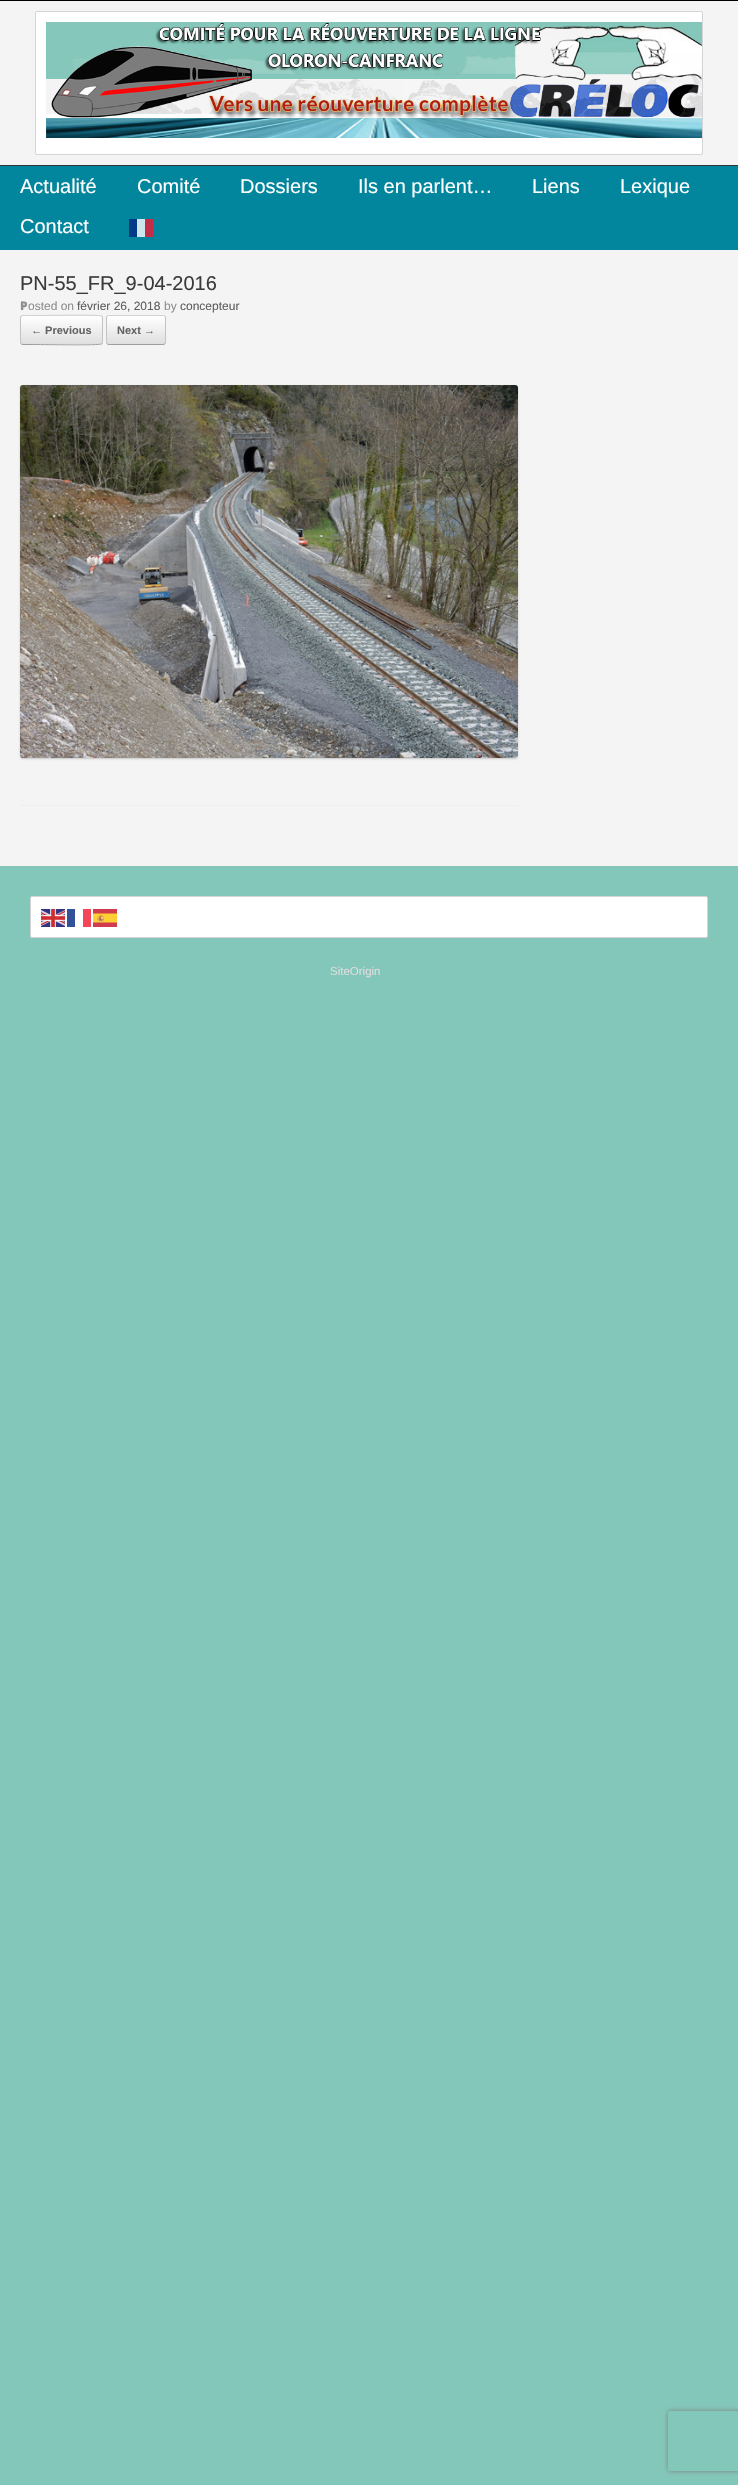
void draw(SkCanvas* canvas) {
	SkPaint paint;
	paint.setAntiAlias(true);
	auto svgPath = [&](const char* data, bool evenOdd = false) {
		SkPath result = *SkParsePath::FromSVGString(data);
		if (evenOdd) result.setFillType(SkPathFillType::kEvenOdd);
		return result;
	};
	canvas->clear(0xff83c7ba);
	paint.setColor(0xff000000);
	canvas->drawRect(SkRect::MakeXYWH(0, 0, 738, 1), paint);
	paint.setColor(0xfff4f4f4);
	canvas->drawRect(SkRect::MakeXYWH(0, 1, 738, 164), paint);
	paint.setColor(0xffffffff);
	canvas->drawRoundRect(SkRect::MakeXYWH(35.5, 11.5, 667, 143), 1.5, 1.5, paint);
	paint.setStroke(true);
	paint.setStrokeWidth(1);
	paint.setColor(0xffd5d5d9);
	canvas->drawRoundRect(SkRect::MakeXYWH(35.5, 11.5, 667, 143), 1.5, 1.5, paint);
	canvas->drawImageRect(SkImages::DeferredFromEncodedData(SkData::MakeFromFileName("img1.png")), SkRect::MakeXYWH(46, 22, 656, 116), SkSamplingOptions());
	paint.setStroke(false);
	paint.setColor(0xff01869e);
	canvas->drawRect(SkRect::MakeXYWH(0, 166, 738, 84), paint);
	paint.setColor(0xff333333);
	canvas->drawRect(SkRect::MakeXYWH(0, 165, 738, 1), paint);
	SkFont f1(fontMgr->matchFamilyStyle("Liberation Sans", SkFontStyle::Normal()), 20);
	f1.setSubpixel(true);
	paint.setColor(0xffffffff);
	canvas->drawString("Actualité", 20, 193, f1, paint);
	canvas->drawString("Comité", 137, 193, f1, paint);
	canvas->drawString("Dossiers", 240, 193, f1, paint);
	canvas->drawString("Ils en parlent…", 358, 193, f1, paint);
	canvas->drawString("Liens", 532, 193, f1, paint);
	canvas->drawString("Lexique", 620, 193, f1, paint);
	canvas->drawString("Contact", 20, 233, f1, paint);
	paint.setColor(0xff003985);
	canvas->drawRect(SkRect::MakeXYWH(129, 219, 8, 18), paint);
	paint.setColor(0xffcce7ec);
	canvas->drawRect(SkRect::MakeXYWH(137, 219, 8, 18), paint);
	paint.setColor(0xffc32e46);
	canvas->drawRect(SkRect::MakeXYWH(145, 219, 8, 18), paint);
	paint.setColor(0xfff4f4f4);
	canvas->drawRect(SkRect::MakeXYWH(0, 250, 738, 616), paint);
	paint.setColor(0xffeeeeee);
	canvas->drawRect(SkRect::MakeXYWH(20, 805, 498, 1), paint);
	paint.setColor(0xff3b3b3b);
	canvas->drawString("PN-55_FR_9-04-2016", 20, 290, f1, paint);
	SkFont f2(fontMgr->matchFamilyStyle("Noto Sans", SkFontStyle(900, SkFontStyle::kNormal_Width, SkFontStyle::kUpright_Slant)), 12);
	f2.setSubpixel(true);
	paint.setColor(0xff8f8f8f);
	canvas->drawString("P", 20, 310, f2, paint);
	SkFont f3(fontMgr->matchFamilyStyle("Liberation Sans", SkFontStyle::Normal()), 12);
	f3.setSubpixel(true);
	canvas->drawString("osted on", 28, 310, f3, paint);
	paint.setColor(0xff5e5e5e);
	canvas->drawString("février 26, 2018", 77, 310, f3, paint);
	paint.setColor(0xff8f8f8f);
	canvas->drawString("by", 164, 310, f3, paint);
	paint.setColor(0xff5e5e5e);
	canvas->drawString("concepteur", 180, 310, f3, paint);
	canvas->save();
	canvas->clipPath(svgPath("M23 315H100C101.5 315 103 316.5 103 318V342C103 343.5 101.5 345 100 345H23C21.5 345 20 343.5 20 342V318C20 316.5 21.5 315 23 315Z"), true);
	{
		const SkColor colors[] = {0xffdfdfdf, 0xffffffff};
		const float stops[] = {0, 1};
		const SkPoint ends[] = {{21, 316}, {21, 288}};
		paint.setShader(SkGradientShader::MakeLinear(ends, colors, stops, 2, SkTileMode::kClamp));
		paint.setAlpha(255);
	}
	canvas->drawRect(SkRect::MakeXYWH(20, 315, 83, 1), paint);
	{
		const SkColor colors[] = {0xffdfdfdf, 0xffffffff};
		const float stops[] = {0, 1};
		const SkPoint ends[] = {{21, 344}, {21, 316}};
		paint.setShader(SkGradientShader::MakeLinear(ends, colors, stops, 2, SkTileMode::kClamp));
		paint.setAlpha(255);
	}
	canvas->drawRect(SkRect::MakeXYWH(20, 316, 83, 28), paint);
	{
		const SkColor colors[] = {0xffdfdfdf, 0xffffffff};
		const float stops[] = {0, 1};
		const SkPoint ends[] = {{21, 372}, {21, 344}};
		paint.setShader(SkGradientShader::MakeLinear(ends, colors, stops, 2, SkTileMode::kClamp));
		paint.setAlpha(255);
	}
	canvas->drawRect(SkRect::MakeXYWH(20, 344, 83, 1), paint);
	canvas->restore();
	paint.setStroke(true);
	paint.setShader(nullptr);
	paint.setColor(0xffd2d2d2);
	canvas->drawPath(svgPath("M21 316L23 315.5H36C43 315.5 99.5 314.5 101.5 316H102"), paint);
	paint.setColor(0xffc3c3c3);
	canvas->drawPath(svgPath("M102 316C102 316.5 102.5 317.5 102.5 318V342C102.5 342.5 102 343.5 102 344"), paint);
	paint.setColor(0xff9f9f9f);
	canvas->drawPath(svgPath("M102 344H101.5C99.5 345.5 43 344.5 36 344.5H23L21 344"), paint);
	paint.setColor(0xffc3c3c3);
	canvas->drawPath(svgPath("M21 344C21 343.5 20.5 342.5 20.5 342V318C20.5 317.5 21 316.5 21 316"), paint);
	SkFont f4(fontMgr->matchFamilyStyle("Liberation Sans", SkFontStyle::Bold()), 11);
	f4.setSubpixel(true);
	paint.setStroke(false);
	paint.setColor(0xff646464);
	canvas->drawString("← Previous", 31, 334, f4, paint);
	canvas->save();
	canvas->clipPath(svgPath("M109 315H163C164.5 315 166 316.5 166 318V342C166 343.5 164.5 345 163 345H109C107.5 345 106 343.5 106 342V318C106 316.5 107.5 315 109 315Z"), true);
	{
		const SkColor colors[] = {0xffdfdfdf, 0xffffffff};
		const float stops[] = {0, 1};
		const SkPoint ends[] = {{107, 344}, {107, 316}};
		paint.setShader(SkGradientShader::MakeLinear(ends, colors, stops, 2, SkTileMode::kClamp));
		paint.setAlpha(255);
	}
	canvas->drawRect(SkRect::MakeXYWH(106, 316, 60, 28), paint);
	canvas->restore();
	paint.setStroke(true);
	paint.setShader(nullptr);
	paint.setColor(0xffd2d2d2);
	canvas->drawPath(svgPath("M107 316L109 315.5H163L165 316"), paint);
	paint.setColor(0xffc3c3c3);
	canvas->drawPath(svgPath("M165 316C165 316.5 165.5 317.5 165.5 318V342C165.5 342.5 165 343.5 165 344"), paint);
	paint.setColor(0xff9f9f9f);
	canvas->drawPath(svgPath("M165 344L163 344.5H109L107 344"), paint);
	paint.setColor(0xffc3c3c3);
	canvas->drawPath(svgPath("M107 344C107 343.5 106.5 342.5 106.5 342V318C106.5 317.5 107 316.5 107 316"), paint);
	paint.setStroke(false);
	paint.setColor(0xff646464);
	canvas->drawString("Next →", 117, 334, f4, paint);
	paint.setColor(0x2e000000);
	paint.setMaskFilter(SkMaskFilter::MakeBlur(kNormal_SkBlurStyle, 1));
	canvas->drawRoundRect(SkRect::MakeXYWH(20, 386, 498, 373), 3, 3, paint);
	paint.setMaskFilter(nullptr);
	canvas->drawImageRect(SkImages::DeferredFromEncodedData(SkData::MakeFromFileName("img2.png")), SkRect::MakeXYWH(20, 385, 498, 373), SkSamplingOptions());
	paint.setColor(0xffffffff);
	canvas->drawRoundRect(SkRect::MakeXYWH(30.5, 896.5, 677, 41), 1.5, 1.5, paint);
	paint.setStroke(true);
	paint.setColor(0xffd5d5d9);
	canvas->drawRoundRect(SkRect::MakeXYWH(30.5, 896.5, 677, 41), 1.5, 1.5, paint);
	canvas->drawImageRect(SkImages::DeferredFromEncodedData(SkData::MakeFromFileName("img3.png")), SkRect::MakeXYWH(41, 909, 24, 18), SkSamplingOptions());
	paint.setStroke(false);
	paint.setColor(0xff335199);
	canvas->drawRect(SkRect::MakeXYWH(67, 909, 8, 18), paint);
	paint.setColor(0xfff54659);
	canvas->drawRect(SkRect::MakeXYWH(83, 909, 8, 18), paint);
	canvas->drawImageRect(SkImages::DeferredFromEncodedData(SkData::MakeFromFileName("img4.png")), SkRect::MakeXYWH(93, 909, 24, 18), SkSamplingOptions());
	SkFont f5(fontMgr->matchFamilyStyle("Liberation Sans", SkFontStyle::Normal()), 11.5);
	f5.setSubpixel(true);
	paint.setColor(0xffdddddd);
	canvas->drawString("SiteOrigin", 330, 975, f5, paint);
	canvas->save();
	canvas->clipPath(svgPath("M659 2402H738V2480H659ZM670 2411H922C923 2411 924 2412 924 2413V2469C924 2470 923 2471 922 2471H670C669 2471 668 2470 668 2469V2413C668 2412 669 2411 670 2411Z", true), true);
	paint.setColor(0xff808080);
	paint.setMaskFilter(SkMaskFilter::MakeBlur(kNormal_SkBlurStyle, 2.5));
	canvas->drawRoundRect(SkRect::MakeXYWH(668, 2411, 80, 60), 2, 2, paint);
	paint.setMaskFilter(nullptr);
	canvas->restore();
}
